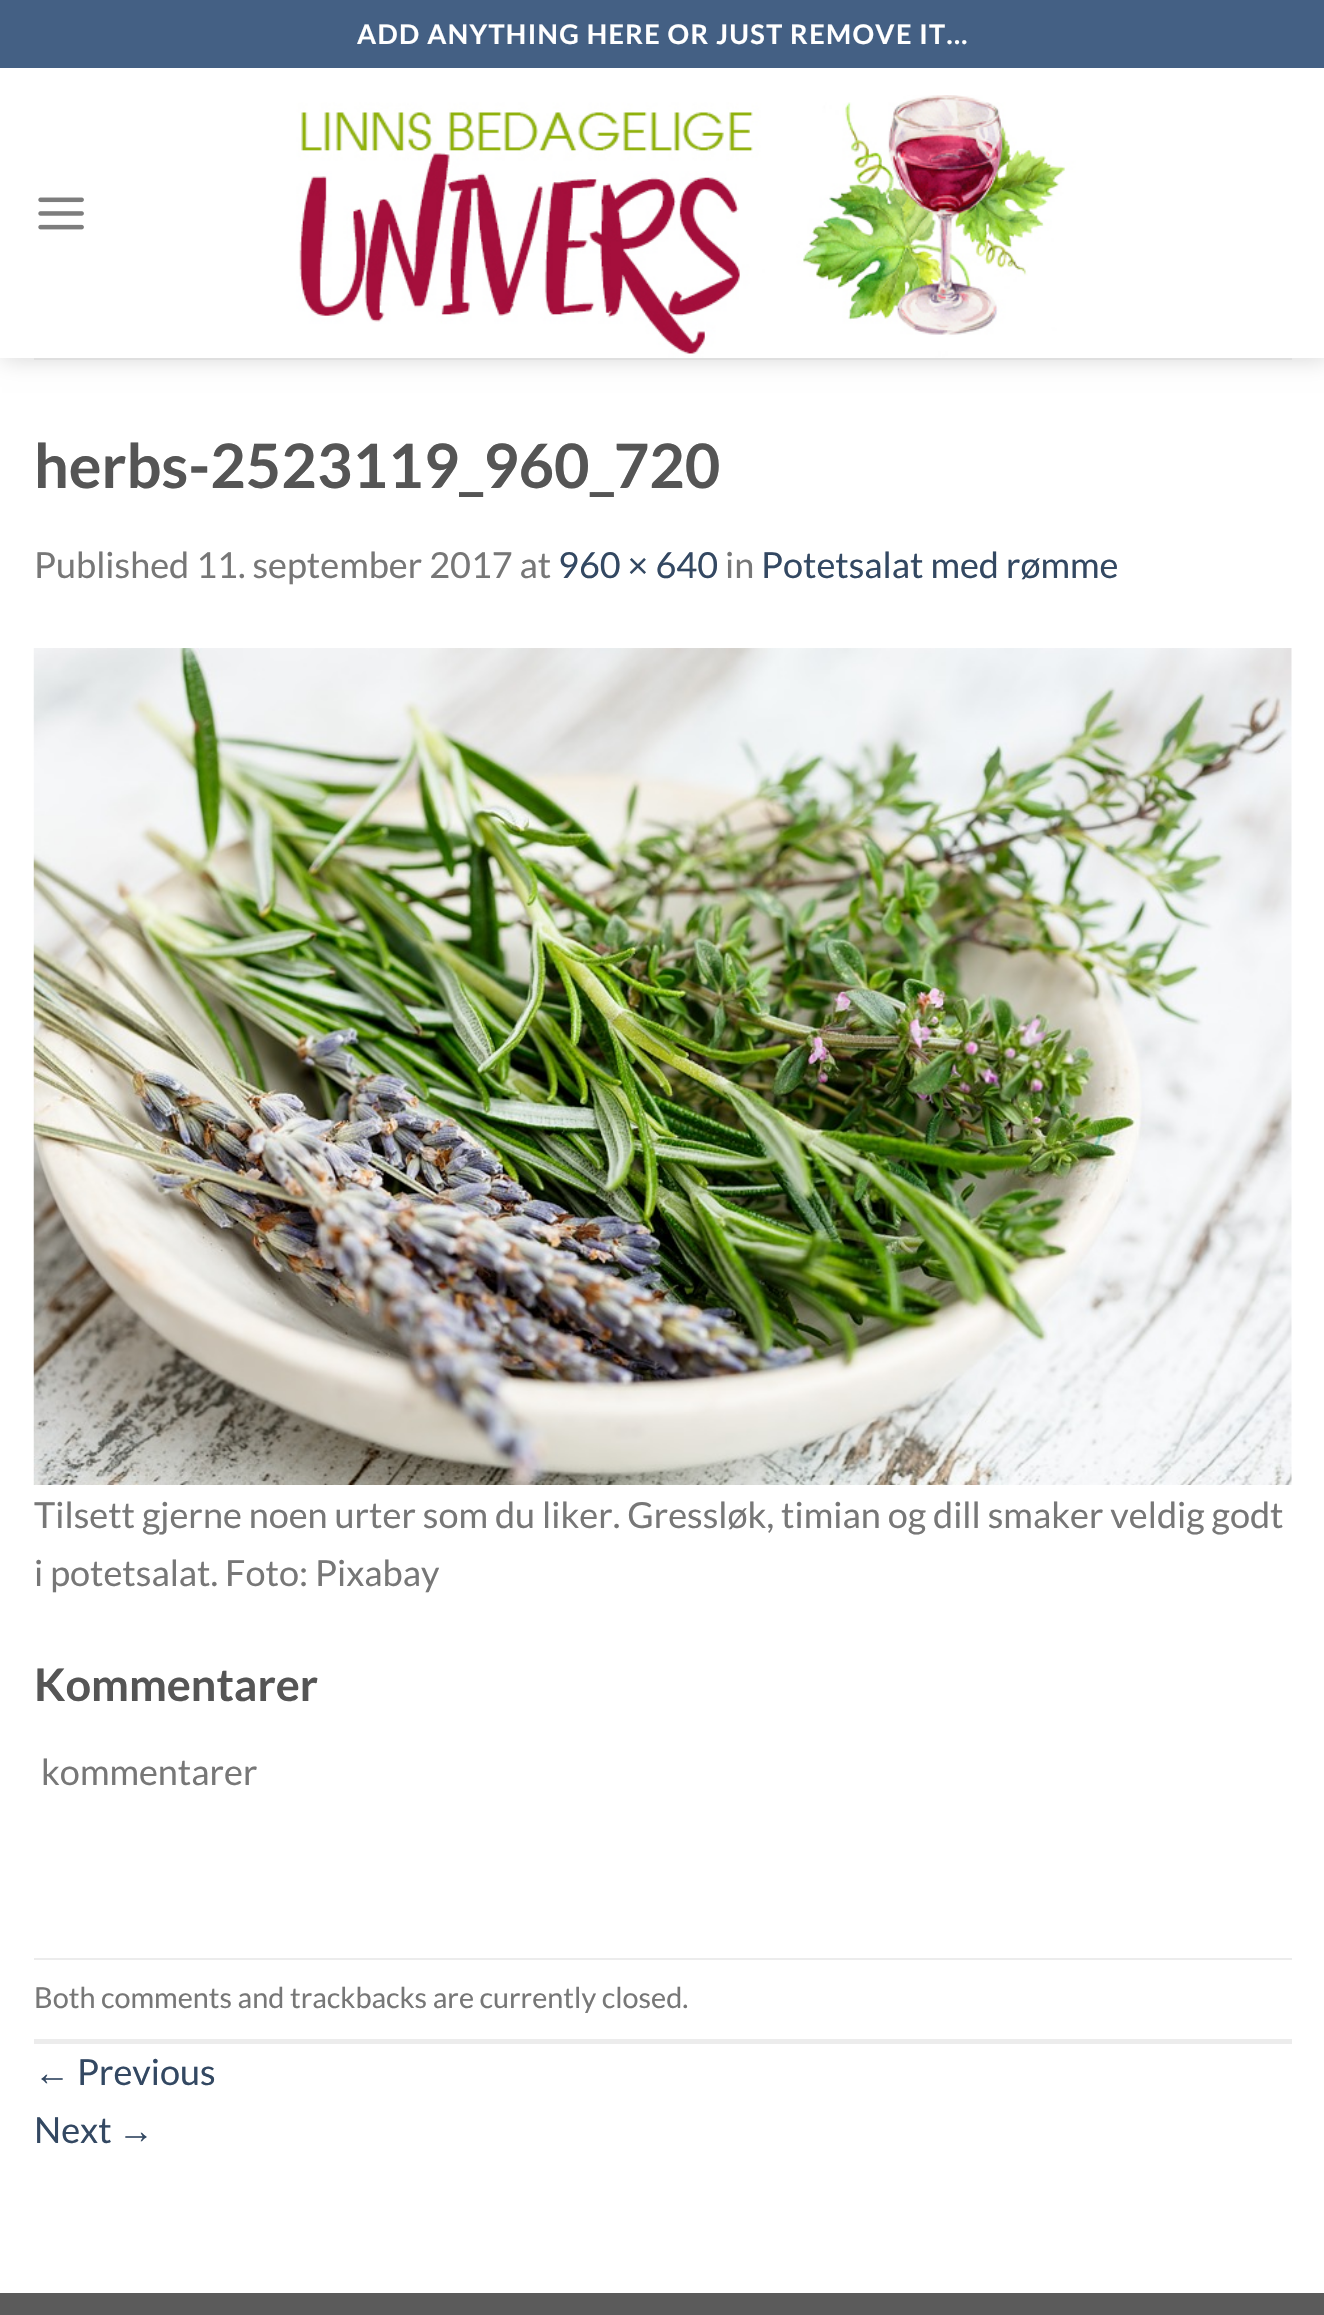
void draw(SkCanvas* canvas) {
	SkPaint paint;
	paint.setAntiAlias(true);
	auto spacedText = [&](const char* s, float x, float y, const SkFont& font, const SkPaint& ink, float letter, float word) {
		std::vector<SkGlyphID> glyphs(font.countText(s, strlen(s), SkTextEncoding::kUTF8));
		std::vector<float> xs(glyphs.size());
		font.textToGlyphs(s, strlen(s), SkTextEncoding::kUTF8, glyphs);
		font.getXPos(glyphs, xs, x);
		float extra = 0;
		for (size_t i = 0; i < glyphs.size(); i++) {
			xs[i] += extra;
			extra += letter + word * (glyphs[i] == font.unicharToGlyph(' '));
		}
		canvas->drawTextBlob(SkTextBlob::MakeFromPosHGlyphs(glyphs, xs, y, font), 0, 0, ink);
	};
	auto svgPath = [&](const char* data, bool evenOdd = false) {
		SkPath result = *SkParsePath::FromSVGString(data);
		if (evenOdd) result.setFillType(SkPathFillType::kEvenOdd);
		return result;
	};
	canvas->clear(0xffffffff);
	canvas->save();
	canvas->clipPath(svgPath("M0 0H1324V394H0ZM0 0H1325V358H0Z", true), true);
	paint.setColor(0x26000000);
	paint.setMaskFilter(SkMaskFilter::MakeBlur(kNormal_SkBlurStyle, 11));
	canvas->drawRect(SkRect::MakeXYWH(2, 2, 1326, 358), paint);
	paint.setMaskFilter(nullptr);
	canvas->restore();
	paint.setColor(0xff446084);
	canvas->drawRect(SkRect::MakeXYWH(0, 0, 1324, 68), paint);
	SkFont f1(fontMgr->matchFamilyStyle("Lato", SkFontStyle::Bold()), 27);
	f1.setSubpixel(true);
	paint.setColor(0xffffffff);
	spacedText("ADD ANYTHING HERE OR JUST REMOVE IT...", 357, 44, f1, paint, 1.35, 0);
	canvas->drawImageRect(SkImages::DeferredFromEncodedData(SkData::MakeFromFileName("img1.png")), SkRect::MakeXYWH(38, 197, 46, 33), SkSamplingOptions());
	canvas->drawImageRect(SkImages::DeferredFromEncodedData(SkData::MakeFromFileName("img2.png")), SkRect::MakeXYWH(228, 95, 870, 263), SkSamplingOptions());
	paint.setColor(0xffdfdfdf);
	canvas->drawRect(SkRect::MakeXYWH(34, 358, 1258, 2), paint);
	SkFont f2(fontMgr->matchFamilyStyle("Lato", SkFontStyle::Bold()), 61.25);
	f2.setSubpixel(true);
	paint.setColor(0xff555555);
	canvas->drawString("herbs-2523119_960_720", 34, 488, f2, paint);
	SkFont f3(fontMgr->matchFamilyStyle("Lato", SkFontStyle::Normal()), 36);
	f3.setSubpixel(true);
	paint.setColor(0xff777777);
	canvas->drawString("Published 11. september 2017 at", 34, 578, f3, paint);
	paint.setColor(0xff334862);
	canvas->drawString("960 × 640", 558, 578, f3, paint);
	paint.setColor(0xff777777);
	canvas->drawString("in", 725, 578, f3, paint);
	paint.setColor(0xff334862);
	canvas->drawString("Potetsalat med rømme", 761, 578, f3, paint);
	canvas->drawImageRect(SkImages::DeferredFromEncodedData(SkData::MakeFromFileName("img3.png")), SkRect::MakeXYWH(33, 648, 1259, 837), SkSamplingOptions());
	paint.setColor(0xff777777);
	canvas->drawString("Tilsett gjerne noen urter som du liker. Gressløk, timian og dill smaker veldig godt", 34, 1528, f3, paint);
	canvas->drawString("i potetsalat. Foto: Pixabay", 34, 1586, f3, paint);
	SkFont f4(fontMgr->matchFamilyStyle("Lato", SkFontStyle::Bold()), 45);
	f4.setSubpixel(true);
	paint.setColor(0xff555555);
	canvas->drawString("Kommentarer", 34, 1701, f4, paint);
	paint.setColor(0xff777777);
	canvas->drawString("kommentarer", 41, 1785, f3, paint);
	paint.setColor(0xffececec);
	canvas->drawRect(SkRect::MakeXYWH(34, 1958, 1258, 2), paint);
	canvas->drawRect(SkRect::MakeXYWH(34, 2039, 1258, 5), paint);
	SkFont f5(fontMgr->matchFamilyStyle("Lato", SkFontStyle::Normal()), 28.8);
	f5.setSubpixel(true);
	paint.setColor(0xff777777);
	canvas->drawString("Both comments and trackbacks are currently closed.", 34, 2008, f5, paint);
	SkFont f6(fontMgr->matchFamilyStyle("Liberation Sans", SkFontStyle::Normal()), 36);
	f6.setSubpixel(true);
	paint.setColor(0xff334862);
	canvas->drawString("←", 34, 2085, f6, paint);
	canvas->drawString("Previous", 77, 2085, f3, paint);
	canvas->drawString("Next", 34, 2143, f3, paint);
	canvas->drawString("→", 118, 2143, f6, paint);
	paint.setColor(0xff5b5b5b);
	canvas->drawRect(SkRect::MakeXYWH(0, 2293, 1324, 22), paint);
}
